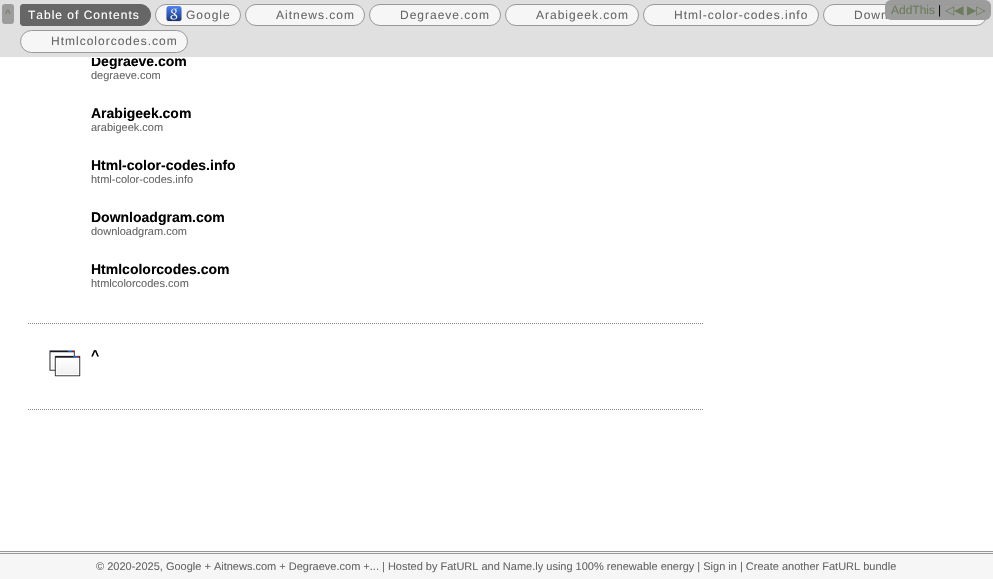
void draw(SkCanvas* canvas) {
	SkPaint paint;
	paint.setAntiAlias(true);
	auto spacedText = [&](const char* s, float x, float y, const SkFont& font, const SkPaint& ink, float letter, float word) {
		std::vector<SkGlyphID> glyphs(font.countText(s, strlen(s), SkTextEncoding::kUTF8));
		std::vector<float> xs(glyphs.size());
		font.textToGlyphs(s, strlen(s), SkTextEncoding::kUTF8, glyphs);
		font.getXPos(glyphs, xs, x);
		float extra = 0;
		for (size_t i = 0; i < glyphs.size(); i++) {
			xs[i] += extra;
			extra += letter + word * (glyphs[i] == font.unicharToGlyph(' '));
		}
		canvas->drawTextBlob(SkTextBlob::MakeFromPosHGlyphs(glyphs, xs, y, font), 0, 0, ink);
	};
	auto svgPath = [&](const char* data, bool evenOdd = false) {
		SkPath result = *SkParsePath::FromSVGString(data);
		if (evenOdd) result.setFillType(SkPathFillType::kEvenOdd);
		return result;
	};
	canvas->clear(0xffffffff);
	SkFont f1(fontMgr->matchFamilyStyle("Liberation Sans", SkFontStyle::Bold()), 14);
	f1.setSubpixel(true);
	paint.setColor(0xff000000);
	canvas->drawString("Degraeve.com", 91, 66, f1, paint);
	paint.setColor(0xffe0e0e0);
	canvas->drawRect(SkRect::MakeXYWH(0, 0, 993, 57), paint);
	paint.setColor(0xff9c9c9c);
	canvas->drawRoundRect(SkRect::MakeXYWH(2, 4, 12, 20), 3, 3, paint);
	SkFont f2(fontMgr->matchFamilyStyle("Liberation Sans", SkFontStyle::Normal()), 12);
	f2.setSubpixel(true);
	paint.setColor(0xff6b7b5b);
	canvas->drawString("^", 5, 18, f2, paint);
	paint.setColor(0xff666666);
	canvas->drawPath(svgPath("M23 4.5H140C146 4.5 150.5 9 150.5 15C150.5 21 146 25.5 140 25.5H23C21.5 25.5 20.5 24.5 20.5 23V7C20.5 5.5 21.5 4.5 23 4.5Z"), paint);
	paint.setStroke(true);
	paint.setStrokeWidth(1);
	canvas->drawPath(svgPath("M23 4.5H140C146 4.5 150.5 9 150.5 15C150.5 21 146 25.5 140 25.5H23C21.5 25.5 20.5 24.5 20.5 23V7C20.5 5.5 21.5 4.5 23 4.5Z"), paint);
	paint.setStroke(false);
	paint.setColor(0xffffffff);
	spacedText("Table of Contents", 28, 19, f2, paint, 1, 0);
	paint.setColor(0xfff6f6f6);
	canvas->drawRoundRect(SkRect::MakeXYWH(155.5, 4.5, 85, 21), 10.5, 10.5, paint);
	paint.setStroke(true);
	paint.setColor(0xff999999);
	canvas->drawRoundRect(SkRect::MakeXYWH(155.5, 4.5, 85, 21), 10.5, 10.5, paint);
	canvas->drawImageRect(SkImages::DeferredFromEncodedData(SkData::MakeFromFileName("img1.png")), SkRect::MakeXYWH(166, 6, 16, 16), SkSamplingOptions());
	paint.setStroke(false);
	paint.setColor(0xff666666);
	spacedText("Google", 186, 19, f2, paint, 1, 0);
	paint.setColor(0xfff6f6f6);
	canvas->drawRoundRect(SkRect::MakeXYWH(245.5, 4.5, 119, 21), 10.5, 10.5, paint);
	paint.setStroke(true);
	paint.setColor(0xff999999);
	canvas->drawRoundRect(SkRect::MakeXYWH(245.5, 4.5, 119, 21), 10.5, 10.5, paint);
	paint.setStroke(false);
	paint.setColor(0xff666666);
	spacedText("Aitnews.com", 276, 19, f2, paint, 1, 0);
	paint.setColor(0xfff6f6f6);
	canvas->drawRoundRect(SkRect::MakeXYWH(369.5, 4.5, 131, 21), 10.5, 10.5, paint);
	paint.setStroke(true);
	paint.setColor(0xff999999);
	canvas->drawRoundRect(SkRect::MakeXYWH(369.5, 4.5, 131, 21), 10.5, 10.5, paint);
	paint.setStroke(false);
	paint.setColor(0xff666666);
	spacedText("Degraeve.com", 400, 19, f2, paint, 1, 0);
	paint.setColor(0xfff6f6f6);
	canvas->drawRoundRect(SkRect::MakeXYWH(505.5, 4.5, 133, 21), 10.5, 10.5, paint);
	paint.setStroke(true);
	paint.setColor(0xff999999);
	canvas->drawRoundRect(SkRect::MakeXYWH(505.5, 4.5, 133, 21), 10.5, 10.5, paint);
	paint.setStroke(false);
	paint.setColor(0xff666666);
	spacedText("Arabigeek.com", 536, 19, f2, paint, 1, 0);
	paint.setColor(0xfff6f6f6);
	canvas->drawRoundRect(SkRect::MakeXYWH(643.5, 4.5, 175, 21), 10.5, 10.5, paint);
	paint.setStroke(true);
	paint.setColor(0xff999999);
	canvas->drawRoundRect(SkRect::MakeXYWH(643.5, 4.5, 175, 21), 10.5, 10.5, paint);
	paint.setStroke(false);
	paint.setColor(0xff666666);
	spacedText("Html-color-codes.info", 674, 19, f2, paint, 1, 0);
	paint.setColor(0xfff6f6f6);
	canvas->drawRoundRect(SkRect::MakeXYWH(823.5, 4.5, 163, 21), 10.5, 10.5, paint);
	paint.setStroke(true);
	paint.setColor(0xff999999);
	canvas->drawRoundRect(SkRect::MakeXYWH(823.5, 4.5, 163, 21), 10.5, 10.5, paint);
	paint.setStroke(false);
	paint.setColor(0xff666666);
	spacedText("Down", 854, 19, f2, paint, 1, 0);
	paint.setColor(0xfff6f6f6);
	canvas->drawRoundRect(SkRect::MakeXYWH(20.5, 30.5, 167, 22), 11, 11, paint);
	paint.setStroke(true);
	paint.setColor(0xff999999);
	canvas->drawRoundRect(SkRect::MakeXYWH(20.5, 30.5, 167, 22), 11, 11, paint);
	paint.setStroke(false);
	paint.setColor(0xff666666);
	spacedText("Htmlcolorcodes.com", 51, 45, f2, paint, 1, 0);
	paint.setColor(0xf5999999);
	canvas->drawRoundRect(SkRect::MakeXYWH(885, 0, 106, 20), 6, 6, paint);
	paint.setColor(0xff6b7b5b);
	canvas->drawString("AddThis", 891, 14, f2, paint);
	paint.setColor(0xff060606);
	canvas->drawString("|", 938, 14, f2, paint);
	SkFont f3(fontMgr->matchFamilyStyle("DejaVu Sans", SkFontStyle::Normal()), 12);
	f3.setSubpixel(true);
	paint.setColor(0xff6b7b5b);
	canvas->drawString("◁◀", 945, 14, f3, paint);
	canvas->drawString("▶▷", 967, 14, f3, paint);
	SkFont f4(fontMgr->matchFamilyStyle("Liberation Sans", SkFontStyle::Normal()), 11);
	f4.setSubpixel(true);
	paint.setColor(0xff666666);
	canvas->drawString("degraeve.com", 91, 79, f4, paint);
	paint.setColor(0xff000000);
	canvas->drawString("Arabigeek.com", 91, 118, f1, paint);
	paint.setColor(0xff666666);
	canvas->drawString("arabigeek.com", 91, 131, f4, paint);
	paint.setColor(0xff000000);
	canvas->drawString("Html-color-codes.info", 91, 170, f1, paint);
	paint.setColor(0xff666666);
	canvas->drawString("html-color-codes.info", 91, 183, f4, paint);
	paint.setColor(0xff000000);
	canvas->drawString("Downloadgram.com", 91, 222, f1, paint);
	paint.setColor(0xff666666);
	canvas->drawString("downloadgram.com", 91, 235, f4, paint);
	paint.setColor(0xff000000);
	canvas->drawString("Htmlcolorcodes.com", 91, 274, f1, paint);
	paint.setColor(0xff666666);
	canvas->drawString("htmlcolorcodes.com", 91, 287, f4, paint);
	paint.setStroke(true);
	paint.setColor(0xff888888);
	paint.setPathEffect(SkDashPathEffect::Make({{1, 1}}, 0));
	canvas->drawPath(svgPath("M28 323.5H703"), paint);
	paint.setPathEffect(nullptr);
	canvas->drawImageRect(SkImages::DeferredFromEncodedData(SkData::MakeFromFileName("img2.png")), SkRect::MakeXYWH(49, 350, 32, 27), SkSamplingOptions());
	paint.setStroke(false);
	paint.setColor(0xff000000);
	canvas->drawString("^", 91, 360, f1, paint);
	paint.setStroke(true);
	paint.setColor(0xff888888);
	paint.setPathEffect(SkDashPathEffect::Make({{1, 1}}, 0));
	canvas->drawPath(svgPath("M28 409.5H703"), paint);
	paint.setPathEffect(nullptr);
	paint.setStroke(false);
	paint.setColor(0xfff6f6f6);
	canvas->drawRect(SkRect::MakeXYWH(0, 552, 993, 27), paint);
	paint.setColor(0xff999999);
	canvas->drawRect(SkRect::MakeXYWH(0, 551, 993, 1), paint);
	canvas->drawRect(SkRect::MakeXYWH(0, 553, 993, 1), paint);
	paint.setColor(0xff666666);
	canvas->drawString("© 2020-2025, Google + Aitnews.com + Degraeve.com +... | Hosted by FatURL and Name.ly using 100% renewable energy | Sign in | Create another FatURL bundle", 96, 570, f4, paint);
	paint.setColor(0xffffffff);
	canvas->drawRect(SkRect::MakeXYWH(91, 57, 9, 1), paint);
}
